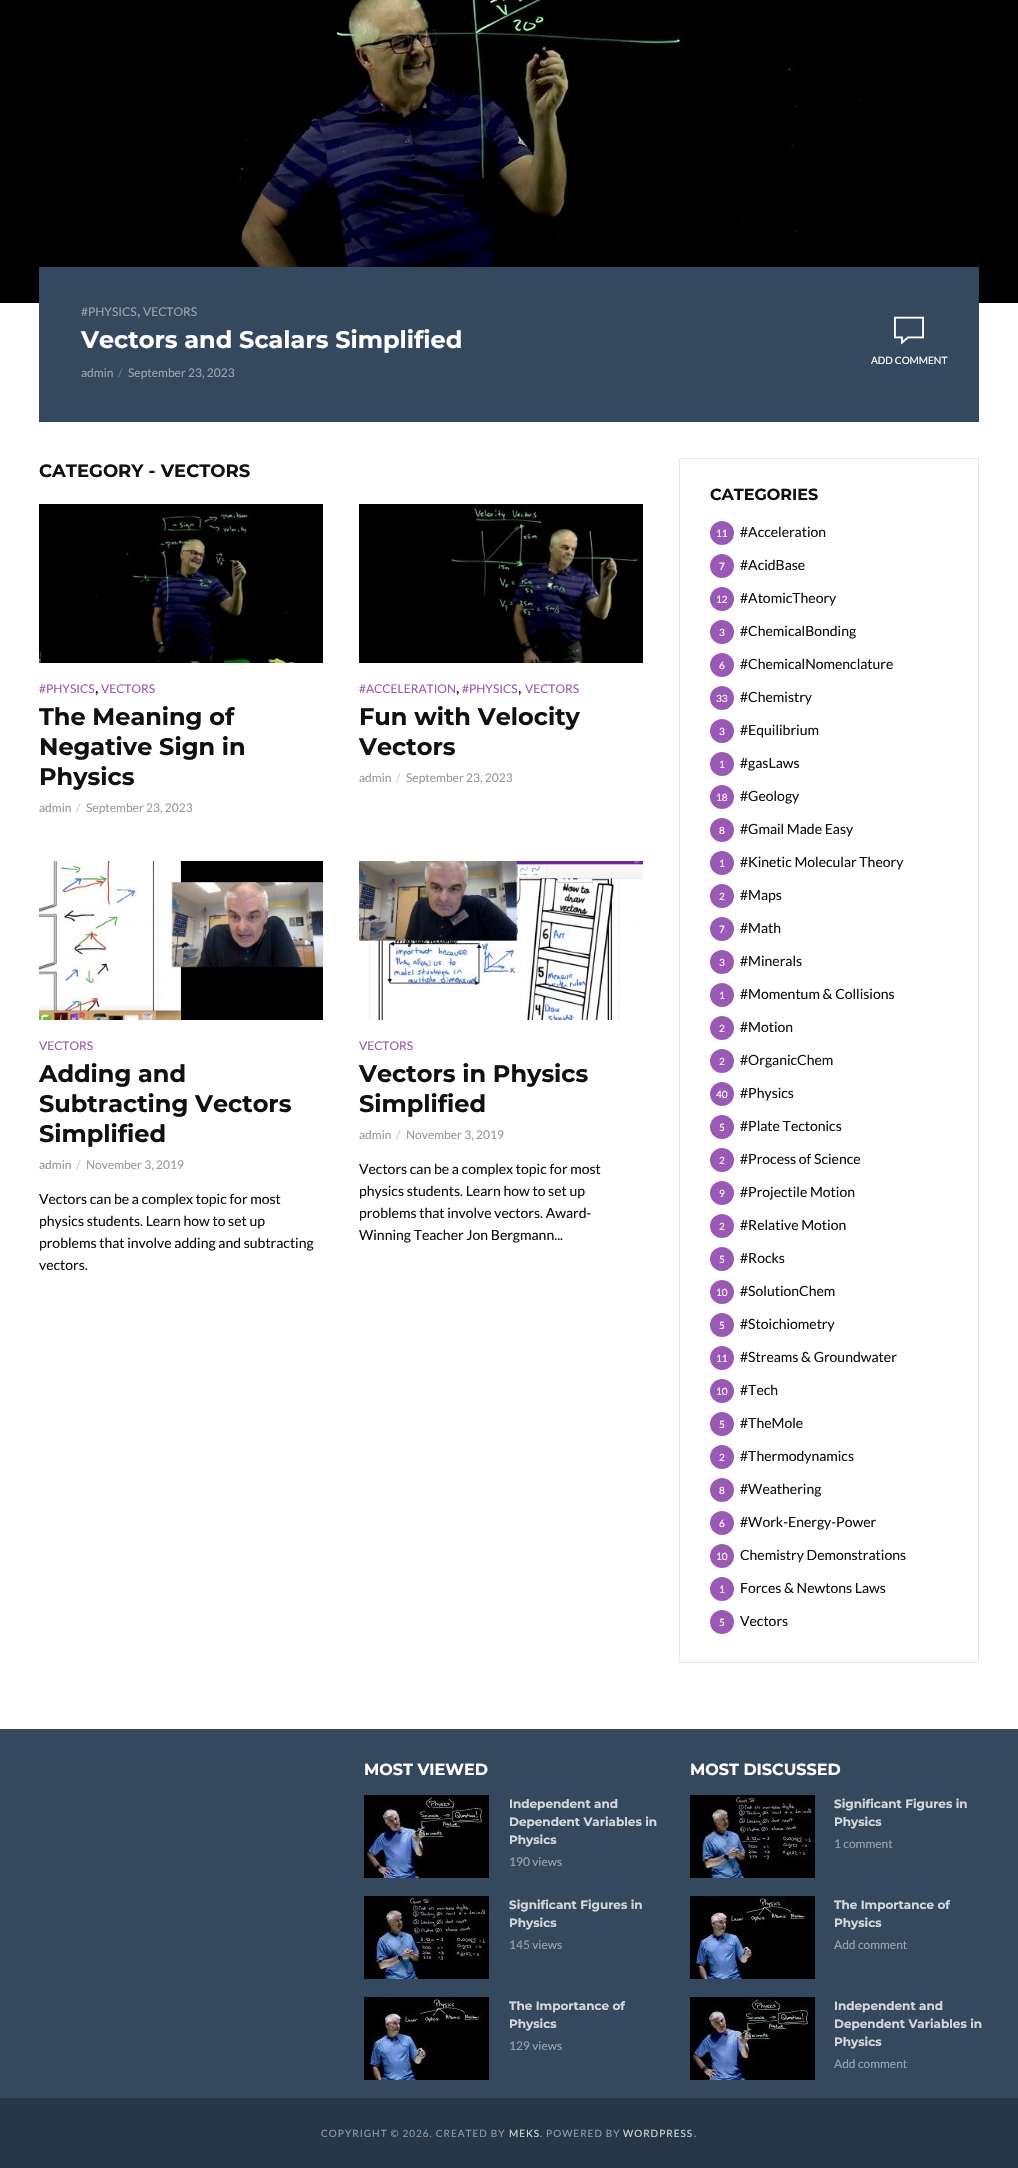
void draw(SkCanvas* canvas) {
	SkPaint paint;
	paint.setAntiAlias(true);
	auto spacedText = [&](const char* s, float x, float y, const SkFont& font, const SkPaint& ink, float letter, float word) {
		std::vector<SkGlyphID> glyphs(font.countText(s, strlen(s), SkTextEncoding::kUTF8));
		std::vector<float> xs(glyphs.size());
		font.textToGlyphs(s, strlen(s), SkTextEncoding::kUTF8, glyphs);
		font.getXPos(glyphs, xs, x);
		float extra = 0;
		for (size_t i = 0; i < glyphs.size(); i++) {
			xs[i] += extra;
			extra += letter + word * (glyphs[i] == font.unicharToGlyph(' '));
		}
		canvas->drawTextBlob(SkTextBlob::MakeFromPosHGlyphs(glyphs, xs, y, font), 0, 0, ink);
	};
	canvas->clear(0xffffffff);
	paint.setColor(0xff000000);
	canvas->drawRect(SkRect::MakeXYWH(0, 0, 1018, 303), paint);
	canvas->drawImageRect(SkImages::DeferredFromEncodedData(SkData::MakeFromFileName("img1.png")), SkRect::MakeXYWH(84, 0, 828, 267), SkSamplingOptions());
	{
		const SkColor colors[] = {0xff000000, 0x00000000};
		const float stops[] = {0, 1};
		const SkPoint ends[] = {{61, 128}, {330, 128}};
		paint.setShader(SkGradientShader::MakeLinear(ends, colors, stops, 2, SkTileMode::kClamp));
		paint.setAlpha(255);
	}
	canvas->drawRect(SkRect::MakeXYWH(84, 75, 238, 192), paint);
	{
		const SkColor colors[] = {0x00000000, 0xff000000};
		const float stops[] = {0, 1};
		const SkPoint ends[] = {{688, 128}, {957, 128}};
		paint.setShader(SkGradientShader::MakeLinear(ends, colors, stops, 2, SkTileMode::kClamp));
		paint.setAlpha(255);
	}
	canvas->drawRect(SkRect::MakeXYWH(788, 66, 74, 166), paint);
	paint.setShader(nullptr);
	paint.setColor(0xff34495e);
	canvas->drawRect(SkRect::MakeXYWH(39, 267, 940, 155), paint);
	SkFont f1(fontMgr->matchFamilyStyle("Lato", SkFontStyle::Normal()), 12);
	f1.setSubpixel(true);
	paint.setColor(0xff9aa4af);
	canvas->drawString("#PHYSICS", 81, 316, f1, paint);
	SkFont f2(fontMgr->matchFamilyStyle("Lato", SkFontStyle::Normal()), 16);
	f2.setSubpixel(true);
	canvas->drawString(",", 137, 316, f2, paint);
	canvas->drawString("VECTORS", 143, 316, f1, paint);
	SkFont f3(fontMgr->matchFamilyStyle("Montserrat", SkFontStyle::Bold()), 24);
	f3.setSubpixel(true);
	paint.setColor(0xffffffff);
	canvas->drawString("Vectors and Scalars Simplified", 81, 348, f3, paint);
	paint.setColor(0xff9aa4af);
	canvas->drawString("admin", 81, 377, f1, paint);
	paint.setColor(0xff677787);
	canvas->drawString("/", 118, 377, f1, paint);
	paint.setColor(0xff9aa4af);
	canvas->drawString("September 23, 2023", 128, 377, f1, paint);
	canvas->drawImageRect(SkImages::DeferredFromEncodedData(SkData::MakeFromFileName("img2.png")), SkRect::MakeXYWH(894, 316, 30, 29), SkSamplingOptions());
	SkFont f4(fontMgr->matchFamilyStyle("Lato", SkFontStyle::Normal()), 10);
	f4.setSubpixel(true);
	paint.setColor(0xffffffff);
	canvas->drawString("ADD COMMENT", 871, 364, f4, paint);
	SkFont f5(fontMgr->matchFamilyStyle("Montserrat", SkFontStyle::Bold()), 18);
	f5.setSubpixel(true);
	paint.setColor(0xff111111);
	canvas->drawString("CATEGORY - VECTORS", 39, 477, f5, paint);
	canvas->drawImageRect(SkImages::DeferredFromEncodedData(SkData::MakeFromFileName("img3.png")), SkRect::MakeXYWH(39, 504, 284, 159), SkSamplingOptions());
	paint.setColor(0xff9b59b6);
	canvas->drawString("#PHYSICS", 39, 693, f1, paint);
	paint.setColor(0xff111111);
	canvas->drawString(",", 95, 693, f2, paint);
	paint.setColor(0xff9b59b6);
	canvas->drawString("VECTORS", 101, 693, f1, paint);
	paint.setColor(0xff111111);
	canvas->drawString("The Meaning of", 39, 725, f3, paint);
	canvas->drawString("Negative Sign in", 39, 755, f3, paint);
	canvas->drawString("Physics", 39, 785, f3, paint);
	paint.setColor(0xff999999);
	canvas->drawString("admin", 39, 812, f1, paint);
	paint.setColor(0xffcccccc);
	canvas->drawString("/", 76, 812, f1, paint);
	paint.setColor(0xff999999);
	canvas->drawString("September 23, 2023", 86, 812, f1, paint);
	canvas->drawImageRect(SkImages::DeferredFromEncodedData(SkData::MakeFromFileName("img4.png")), SkRect::MakeXYWH(359, 504, 284, 159), SkSamplingOptions());
	paint.setColor(0xff9b59b6);
	canvas->drawString("#ACCELERATION", 359, 693, f1, paint);
	paint.setColor(0xff111111);
	canvas->drawString(",", 456, 693, f2, paint);
	paint.setColor(0xff9b59b6);
	canvas->drawString("#PHYSICS", 462, 693, f1, paint);
	paint.setColor(0xff111111);
	canvas->drawString(",", 518, 693, f2, paint);
	paint.setColor(0xff9b59b6);
	canvas->drawString("VECTORS", 525, 693, f1, paint);
	paint.setColor(0xff111111);
	canvas->drawString("Fun with Velocity", 359, 725, f3, paint);
	canvas->drawString("Vectors", 359, 755, f3, paint);
	paint.setColor(0xff999999);
	canvas->drawString("admin", 359, 782, f1, paint);
	paint.setColor(0xffcccccc);
	canvas->drawString("/", 396, 782, f1, paint);
	paint.setColor(0xff999999);
	canvas->drawString("September 23, 2023", 406, 782, f1, paint);
	canvas->drawImageRect(SkImages::DeferredFromEncodedData(SkData::MakeFromFileName("img5.png")), SkRect::MakeXYWH(39, 861, 284, 159), SkSamplingOptions());
	paint.setColor(0xff9b59b6);
	canvas->drawString("VECTORS", 39, 1050, f1, paint);
	paint.setColor(0xff111111);
	canvas->drawString("Adding and", 39, 1082, f3, paint);
	canvas->drawString("Subtracting Vectors", 39, 1112, f3, paint);
	canvas->drawString("Simplified", 39, 1142, f3, paint);
	paint.setColor(0xff999999);
	canvas->drawString("admin", 39, 1169, f1, paint);
	paint.setColor(0xffcccccc);
	canvas->drawString("/", 76, 1169, f1, paint);
	paint.setColor(0xff999999);
	canvas->drawString("November 3, 2019", 86, 1169, f1, paint);
	SkFont f6(fontMgr->matchFamilyStyle("Lato", SkFontStyle::Normal()), 14);
	f6.setSubpixel(true);
	paint.setColor(0xff111111);
	canvas->drawString("Vectors can be a complex topic for most", 39, 1204, f6, paint);
	canvas->drawString("physics students. Learn how to set up", 39, 1226, f6, paint);
	canvas->drawString("problems that involve adding and subtracting", 39, 1248, f6, paint);
	canvas->drawString("vectors.", 39, 1270, f6, paint);
	canvas->drawImageRect(SkImages::DeferredFromEncodedData(SkData::MakeFromFileName("img6.png")), SkRect::MakeXYWH(359, 861, 284, 159), SkSamplingOptions());
	paint.setColor(0xff9b59b6);
	canvas->drawString("VECTORS", 359, 1050, f1, paint);
	paint.setColor(0xff111111);
	canvas->drawString("Vectors in Physics", 359, 1082, f3, paint);
	canvas->drawString("Simplified", 359, 1112, f3, paint);
	paint.setColor(0xff999999);
	canvas->drawString("admin", 359, 1139, f1, paint);
	paint.setColor(0xffcccccc);
	canvas->drawString("/", 396, 1139, f1, paint);
	paint.setColor(0xff999999);
	canvas->drawString("November 3, 2019", 406, 1139, f1, paint);
	paint.setColor(0xff111111);
	canvas->drawString("Vectors can be a complex topic for most", 359, 1174, f6, paint);
	canvas->drawString("physics students. Learn how to set up", 359, 1196, f6, paint);
	canvas->drawString("problems that involve vectors. Award-", 359, 1218, f6, paint);
	canvas->drawString("Winning Teacher Jon Bergmann...", 359, 1240, f6, paint);
	paint.setStroke(true);
	paint.setStrokeWidth(1);
	paint.setColor(0xffe7e7e7);
	canvas->drawRect(SkRect::MakeXYWH(679.5, 458.5, 299, 1204), paint);
	SkFont f7(fontMgr->matchFamilyStyle("Montserrat", SkFontStyle::Bold()), 16);
	f7.setSubpixel(true);
	paint.setStroke(false);
	paint.setColor(0xff111111);
	canvas->drawString("CATEGORIES", 710, 500, f7, paint);
	paint.setColor(0xff9b59b6);
	canvas->drawCircle(722, 533, 12, paint);
	paint.setColor(0xffffffff);
	canvas->drawString("11", 716, 537, f4, paint);
	paint.setColor(0xff111111);
	canvas->drawString("#Acceleration", 740, 537, f6, paint);
	paint.setColor(0xff9b59b6);
	canvas->drawCircle(722, 566, 12, paint);
	paint.setColor(0xffffffff);
	canvas->drawString("7", 719, 570, f4, paint);
	paint.setColor(0xff111111);
	canvas->drawString("#AcidBase", 740, 570, f6, paint);
	paint.setColor(0xff9b59b6);
	canvas->drawCircle(722, 599, 12, paint);
	paint.setColor(0xffffffff);
	canvas->drawString("12", 716, 603, f4, paint);
	paint.setColor(0xff111111);
	canvas->drawString("#AtomicTheory", 740, 603, f6, paint);
	paint.setColor(0xff9b59b6);
	canvas->drawCircle(722, 632, 12, paint);
	paint.setColor(0xffffffff);
	canvas->drawString("3", 719, 636, f4, paint);
	paint.setColor(0xff111111);
	canvas->drawString("#ChemicalBonding", 740, 636, f6, paint);
	paint.setColor(0xff9b59b6);
	canvas->drawCircle(722, 665, 12, paint);
	paint.setColor(0xffffffff);
	canvas->drawString("6", 719, 669, f4, paint);
	paint.setColor(0xff111111);
	canvas->drawString("#ChemicalNomenclature", 740, 669, f6, paint);
	paint.setColor(0xff9b59b6);
	canvas->drawCircle(722, 698, 12, paint);
	paint.setColor(0xffffffff);
	canvas->drawString("33", 716, 702, f4, paint);
	paint.setColor(0xff111111);
	canvas->drawString("#Chemistry", 740, 702, f6, paint);
	paint.setColor(0xff9b59b6);
	canvas->drawCircle(722, 731, 12, paint);
	paint.setColor(0xffffffff);
	canvas->drawString("3", 719, 735, f4, paint);
	paint.setColor(0xff111111);
	canvas->drawString("#Equilibrium", 740, 735, f6, paint);
	paint.setColor(0xff9b59b6);
	canvas->drawCircle(722, 764, 12, paint);
	paint.setColor(0xffffffff);
	canvas->drawString("1", 719, 768, f4, paint);
	paint.setColor(0xff111111);
	canvas->drawString("#gasLaws", 740, 768, f6, paint);
	paint.setColor(0xff9b59b6);
	canvas->drawCircle(722, 797, 12, paint);
	paint.setColor(0xffffffff);
	canvas->drawString("18", 716, 801, f4, paint);
	paint.setColor(0xff111111);
	canvas->drawString("#Geology", 740, 801, f6, paint);
	paint.setColor(0xff9b59b6);
	canvas->drawCircle(722, 830, 12, paint);
	paint.setColor(0xffffffff);
	canvas->drawString("8", 719, 834, f4, paint);
	paint.setColor(0xff111111);
	canvas->drawString("#Gmail Made Easy", 740, 834, f6, paint);
	paint.setColor(0xff9b59b6);
	canvas->drawCircle(722, 863, 12, paint);
	paint.setColor(0xffffffff);
	canvas->drawString("1", 719, 867, f4, paint);
	paint.setColor(0xff111111);
	canvas->drawString("#Kinetic Molecular Theory", 740, 867, f6, paint);
	paint.setColor(0xff9b59b6);
	canvas->drawCircle(722, 896, 12, paint);
	paint.setColor(0xffffffff);
	canvas->drawString("2", 719, 900, f4, paint);
	paint.setColor(0xff111111);
	canvas->drawString("#Maps", 740, 900, f6, paint);
	paint.setColor(0xff9b59b6);
	canvas->drawCircle(722, 929, 12, paint);
	paint.setColor(0xffffffff);
	canvas->drawString("7", 719, 933, f4, paint);
	paint.setColor(0xff111111);
	canvas->drawString("#Math", 740, 933, f6, paint);
	paint.setColor(0xff9b59b6);
	canvas->drawCircle(722, 962, 12, paint);
	paint.setColor(0xffffffff);
	canvas->drawString("3", 719, 966, f4, paint);
	paint.setColor(0xff111111);
	canvas->drawString("#Minerals", 740, 966, f6, paint);
	paint.setColor(0xff9b59b6);
	canvas->drawCircle(722, 995, 12, paint);
	paint.setColor(0xffffffff);
	canvas->drawString("1", 719, 999, f4, paint);
	paint.setColor(0xff111111);
	canvas->drawString("#Momentum & Collisions", 740, 999, f6, paint);
	paint.setColor(0xff9b59b6);
	canvas->drawCircle(722, 1028, 12, paint);
	paint.setColor(0xffffffff);
	canvas->drawString("2", 719, 1032, f4, paint);
	paint.setColor(0xff111111);
	canvas->drawString("#Motion", 740, 1032, f6, paint);
	paint.setColor(0xff9b59b6);
	canvas->drawCircle(722, 1061, 12, paint);
	paint.setColor(0xffffffff);
	canvas->drawString("2", 719, 1065, f4, paint);
	paint.setColor(0xff111111);
	canvas->drawString("#OrganicChem", 740, 1065, f6, paint);
	paint.setColor(0xff9b59b6);
	canvas->drawCircle(722, 1094, 12, paint);
	paint.setColor(0xffffffff);
	canvas->drawString("40", 716, 1098, f4, paint);
	paint.setColor(0xff111111);
	canvas->drawString("#Physics", 740, 1098, f6, paint);
	paint.setColor(0xff9b59b6);
	canvas->drawCircle(722, 1127, 12, paint);
	paint.setColor(0xffffffff);
	canvas->drawString("5", 719, 1131, f4, paint);
	paint.setColor(0xff111111);
	canvas->drawString("#Plate Tectonics", 740, 1131, f6, paint);
	paint.setColor(0xff9b59b6);
	canvas->drawCircle(722, 1160, 12, paint);
	paint.setColor(0xffffffff);
	canvas->drawString("2", 719, 1164, f4, paint);
	paint.setColor(0xff111111);
	canvas->drawString("#Process of Science", 740, 1164, f6, paint);
	paint.setColor(0xff9b59b6);
	canvas->drawCircle(722, 1193, 12, paint);
	paint.setColor(0xffffffff);
	canvas->drawString("9", 719, 1197, f4, paint);
	paint.setColor(0xff111111);
	canvas->drawString("#Projectile Motion", 740, 1197, f6, paint);
	paint.setColor(0xff9b59b6);
	canvas->drawCircle(722, 1226, 12, paint);
	paint.setColor(0xffffffff);
	canvas->drawString("2", 719, 1230, f4, paint);
	paint.setColor(0xff111111);
	canvas->drawString("#Relative Motion", 740, 1230, f6, paint);
	paint.setColor(0xff9b59b6);
	canvas->drawCircle(722, 1259, 12, paint);
	paint.setColor(0xffffffff);
	canvas->drawString("5", 719, 1263, f4, paint);
	paint.setColor(0xff111111);
	canvas->drawString("#Rocks", 740, 1263, f6, paint);
	paint.setColor(0xff9b59b6);
	canvas->drawCircle(722, 1292, 12, paint);
	paint.setColor(0xffffffff);
	canvas->drawString("10", 716, 1296, f4, paint);
	paint.setColor(0xff111111);
	canvas->drawString("#SolutionChem", 740, 1296, f6, paint);
	paint.setColor(0xff9b59b6);
	canvas->drawCircle(722, 1325, 12, paint);
	paint.setColor(0xffffffff);
	canvas->drawString("5", 719, 1329, f4, paint);
	paint.setColor(0xff111111);
	canvas->drawString("#Stoichiometry", 740, 1329, f6, paint);
	paint.setColor(0xff9b59b6);
	canvas->drawCircle(722, 1358, 12, paint);
	paint.setColor(0xffffffff);
	canvas->drawString("11", 716, 1362, f4, paint);
	paint.setColor(0xff111111);
	canvas->drawString("#Streams & Groundwater", 740, 1362, f6, paint);
	paint.setColor(0xff9b59b6);
	canvas->drawCircle(722, 1391, 12, paint);
	paint.setColor(0xffffffff);
	canvas->drawString("10", 716, 1395, f4, paint);
	paint.setColor(0xff111111);
	canvas->drawString("#Tech", 740, 1395, f6, paint);
	paint.setColor(0xff9b59b6);
	canvas->drawCircle(722, 1424, 12, paint);
	paint.setColor(0xffffffff);
	canvas->drawString("5", 719, 1428, f4, paint);
	paint.setColor(0xff111111);
	canvas->drawString("#TheMole", 740, 1428, f6, paint);
	paint.setColor(0xff9b59b6);
	canvas->drawCircle(722, 1457, 12, paint);
	paint.setColor(0xffffffff);
	canvas->drawString("2", 719, 1461, f4, paint);
	paint.setColor(0xff111111);
	canvas->drawString("#Thermodynamics", 740, 1461, f6, paint);
	paint.setColor(0xff9b59b6);
	canvas->drawCircle(722, 1490, 12, paint);
	paint.setColor(0xffffffff);
	canvas->drawString("8", 719, 1494, f4, paint);
	paint.setColor(0xff111111);
	canvas->drawString("#Weathering", 740, 1494, f6, paint);
	paint.setColor(0xff9b59b6);
	canvas->drawCircle(722, 1523, 12, paint);
	paint.setColor(0xffffffff);
	canvas->drawString("6", 719, 1527, f4, paint);
	paint.setColor(0xff111111);
	canvas->drawString("#Work-Energy-Power", 740, 1527, f6, paint);
	paint.setColor(0xff9b59b6);
	canvas->drawCircle(722, 1556, 12, paint);
	paint.setColor(0xffffffff);
	canvas->drawString("10", 716, 1560, f4, paint);
	paint.setColor(0xff111111);
	canvas->drawString("Chemistry Demonstrations", 740, 1560, f6, paint);
	paint.setColor(0xff9b59b6);
	canvas->drawCircle(722, 1589, 12, paint);
	paint.setColor(0xffffffff);
	canvas->drawString("1", 719, 1593, f4, paint);
	paint.setColor(0xff111111);
	canvas->drawString("Forces & Newtons Laws", 740, 1593, f6, paint);
	paint.setColor(0xff9b59b6);
	canvas->drawCircle(722, 1622, 12, paint);
	paint.setColor(0xffffffff);
	canvas->drawString("5", 719, 1626, f4, paint);
	paint.setColor(0xff111111);
	canvas->drawString("Vectors", 740, 1626, f6, paint);
	paint.setColor(0xff34495e);
	canvas->drawRect(SkRect::MakeXYWH(0, 1729, 1018, 369), paint);
	paint.setColor(0xffffffff);
	canvas->drawString("MOST VIEWED", 364, 1775, f7, paint);
	canvas->drawImageRect(SkImages::DeferredFromEncodedData(SkData::MakeFromFileName("img7.png")), SkRect::MakeXYWH(364, 1795, 125, 83), SkSamplingOptions());
	SkFont f8(fontMgr->matchFamilyStyle("Montserrat", SkFontStyle::Bold()), 12);
	f8.setSubpixel(true);
	paint.setColor(0xffd4d7da);
	canvas->drawString("Independent and", 509, 1808, f8, paint);
	canvas->drawString("Dependent Variables in", 509, 1826, f8, paint);
	canvas->drawString("Physics", 509, 1844, f8, paint);
	paint.setColor(0xff9aa4af);
	canvas->drawString("190 views", 509, 1866, f1, paint);
	canvas->drawImageRect(SkImages::DeferredFromEncodedData(SkData::MakeFromFileName("img8.png")), SkRect::MakeXYWH(364, 1896, 125, 83), SkSamplingOptions());
	paint.setColor(0xffd4d7da);
	canvas->drawString("Significant Figures in", 509, 1909, f8, paint);
	canvas->drawString("Physics", 509, 1927, f8, paint);
	paint.setColor(0xff9aa4af);
	canvas->drawString("145 views", 509, 1949, f1, paint);
	canvas->drawImageRect(SkImages::DeferredFromEncodedData(SkData::MakeFromFileName("img9.png")), SkRect::MakeXYWH(364, 1997, 125, 83), SkSamplingOptions());
	paint.setColor(0xffd4d7da);
	canvas->drawString("The Importance of", 509, 2010, f8, paint);
	canvas->drawString("Physics", 509, 2028, f8, paint);
	paint.setColor(0xff9aa4af);
	canvas->drawString("129 views", 509, 2050, f1, paint);
	paint.setColor(0xffffffff);
	canvas->drawString("MOST DISCUSSED", 690, 1775, f7, paint);
	canvas->drawImageRect(SkImages::DeferredFromEncodedData(SkData::MakeFromFileName("img8.png")), SkRect::MakeXYWH(690, 1795, 125, 83), SkSamplingOptions());
	paint.setColor(0xffd4d7da);
	canvas->drawString("Significant Figures in", 834, 1808, f8, paint);
	canvas->drawString("Physics", 834, 1826, f8, paint);
	paint.setColor(0xff9aa4af);
	canvas->drawString("1 comment", 834, 1848, f1, paint);
	canvas->drawImageRect(SkImages::DeferredFromEncodedData(SkData::MakeFromFileName("img9.png")), SkRect::MakeXYWH(690, 1896, 125, 83), SkSamplingOptions());
	paint.setColor(0xffd4d7da);
	canvas->drawString("The Importance of", 834, 1909, f8, paint);
	canvas->drawString("Physics", 834, 1927, f8, paint);
	paint.setColor(0xff9aa4af);
	canvas->drawString("Add comment", 834, 1949, f1, paint);
	canvas->drawImageRect(SkImages::DeferredFromEncodedData(SkData::MakeFromFileName("img7.png")), SkRect::MakeXYWH(690, 1997, 125, 83), SkSamplingOptions());
	paint.setColor(0xffd4d7da);
	canvas->drawString("Independent and", 834, 2010, f8, paint);
	canvas->drawString("Dependent Variables in", 834, 2028, f8, paint);
	canvas->drawString("Physics", 834, 2046, f8, paint);
	paint.setColor(0xff9aa4af);
	canvas->drawString("Add comment", 834, 2068, f1, paint);
	paint.setColor(0xff273747);
	canvas->drawRect(SkRect::MakeXYWH(0, 2098, 1018, 70), paint);
	paint.setColor(0xff939ba3);
	spacedText("COPYRIGHT © 2026. CREATED BY", 321, 2137, f4, paint, 1, 0);
	paint.setColor(0xffd4d7da);
	spacedText("MEKS", 509, 2137, f4, paint, 1, 0);
	paint.setColor(0xff939ba3);
	spacedText(". POWERED BY", 540, 2137, f4, paint, 1, 0);
	paint.setColor(0xffd4d7da);
	spacedText("WORDPRESS", 623, 2137, f4, paint, 1, 0);
	paint.setColor(0xff939ba3);
	spacedText(".", 694, 2137, f4, paint, 1, 0);
}
